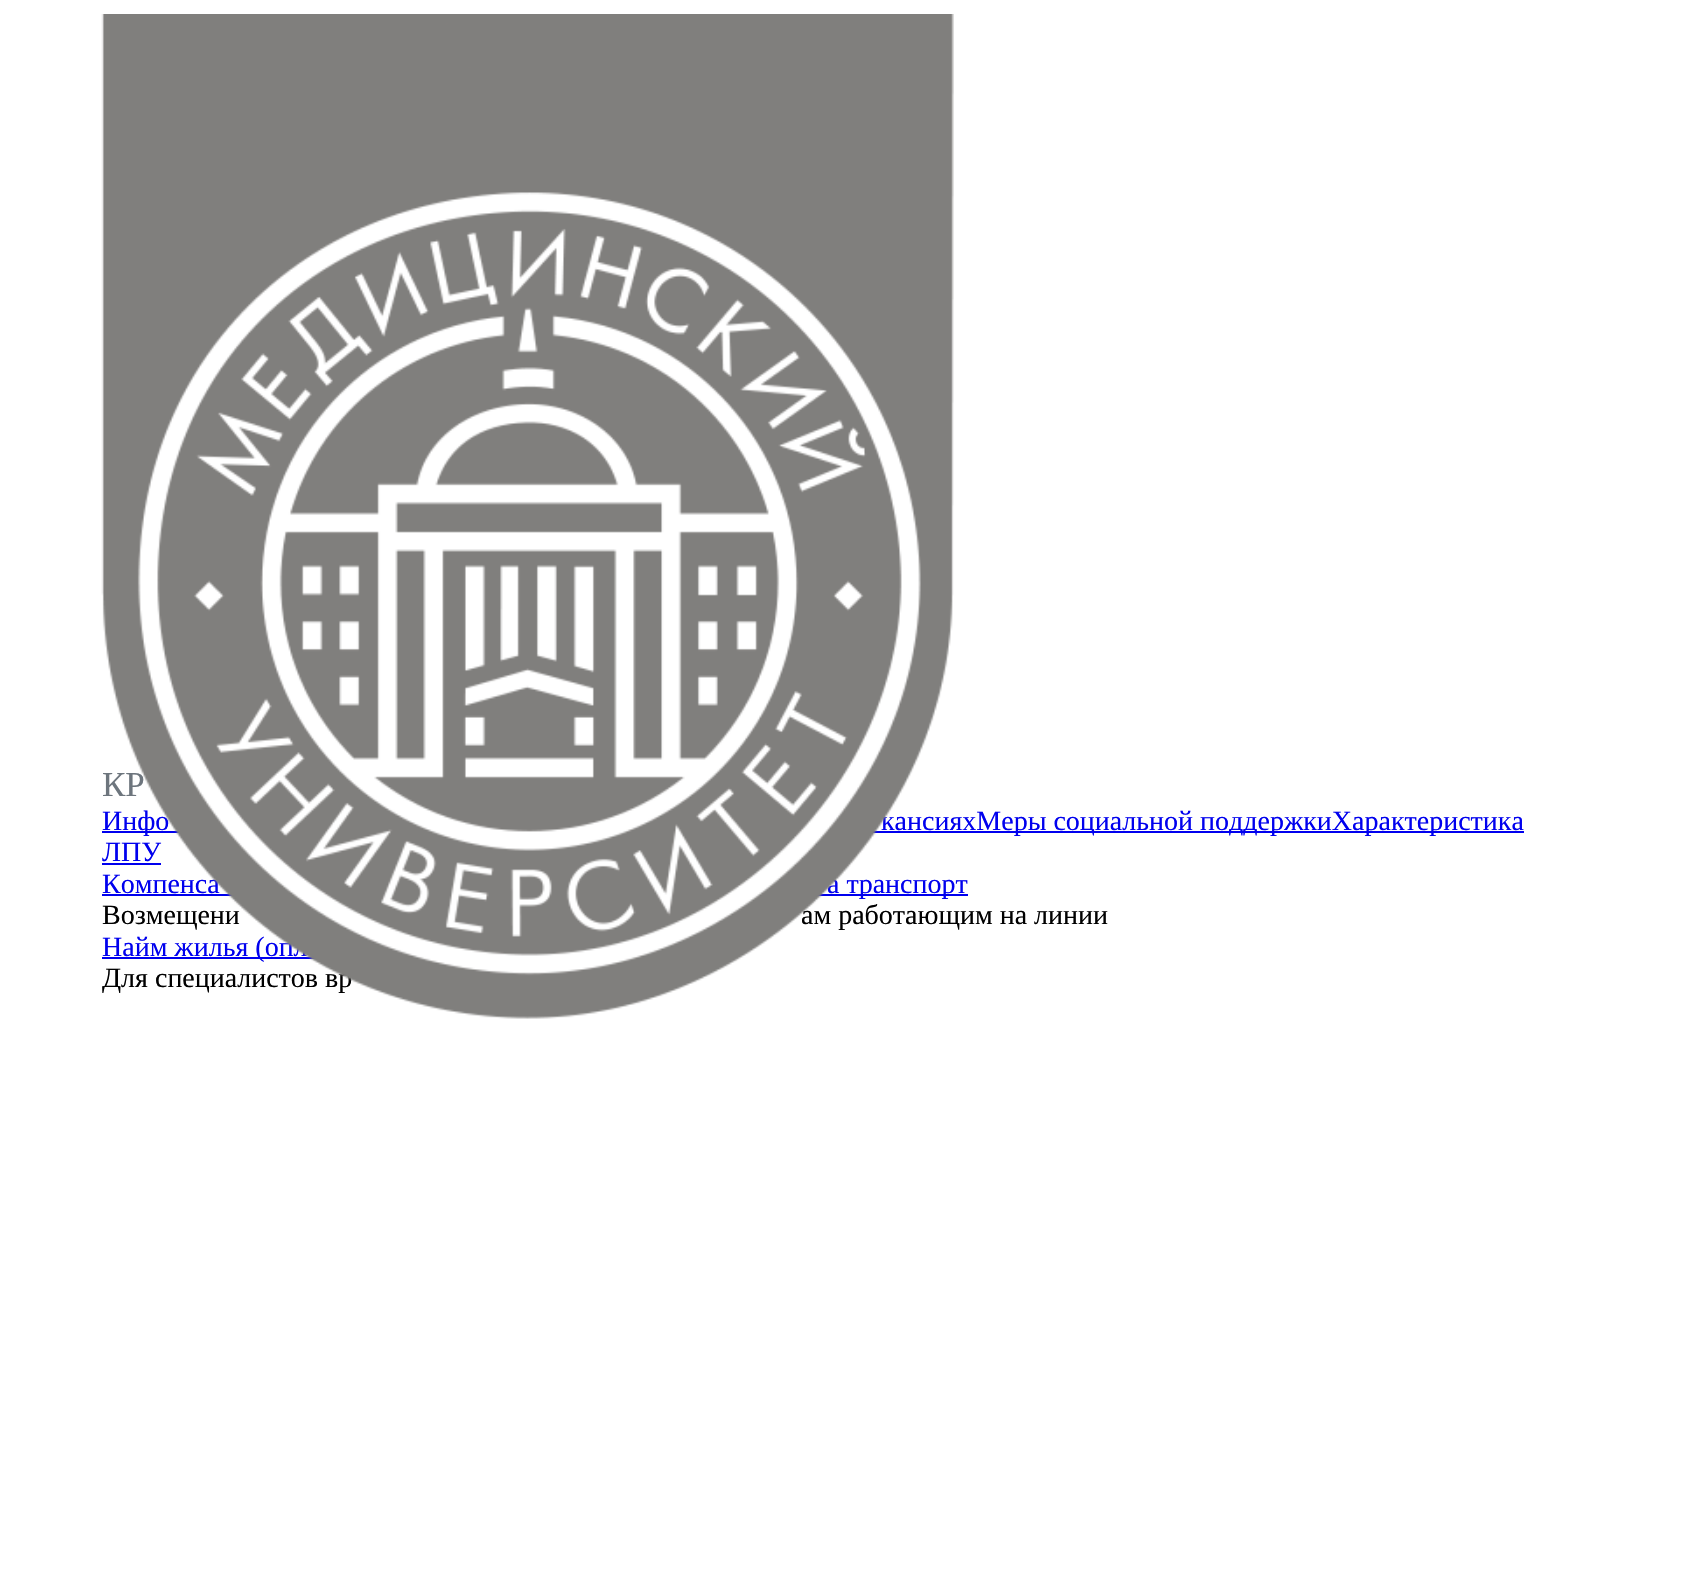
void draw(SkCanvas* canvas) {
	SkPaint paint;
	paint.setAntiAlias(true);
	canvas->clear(0xffffffff);
	SkFont f1(fontMgr->matchFamilyStyle("Liberation Serif", SkFontStyle::Normal()), 35);
	f1.setSubpixel(true);
	paint.setColor(0xff6d757d);
	canvas->drawString("КР", 102, 796, f1, paint);
	paint.setColor(0xff0000ee);
	canvas->drawRect(SkRect::MakeXYWH(102, 831, 77, 2), paint);
	SkFont f2(fontMgr->matchFamilyStyle("Liberation Serif", SkFontStyle::Normal()), 28);
	f2.setSubpixel(true);
	canvas->drawString("Инфо", 102, 830, f2, paint);
	canvas->drawRect(SkRect::MakeXYWH(872, 831, 652, 2), paint);
	canvas->drawString("кансияхМеры социальной поддержкиХарактеристика", 881, 830, f2, paint);
	canvas->drawString("ЛПУ", 102, 861, f2, paint);
	canvas->drawRect(SkRect::MakeXYWH(102, 863, 59, 2), paint);
	canvas->drawString("Компенса", 102, 893, f2, paint);
	canvas->drawRect(SkRect::MakeXYWH(102, 894, 866, 2), paint);
	canvas->drawString("а транспорт", 827, 893, f2, paint);
	paint.setColor(0xff000000);
	canvas->drawString("Возмещени", 102, 924, f2, paint);
	canvas->drawString("ам работающим на линии", 801, 924, f2, paint);
	paint.setColor(0xff0000ee);
	canvas->drawRect(SkRect::MakeXYWH(102, 957, 214, 2), paint);
	canvas->drawString("Найм жилья (опл", 102, 956, f2, paint);
	paint.setColor(0xff000000);
	canvas->drawString("Для специалистов вр", 102, 987, f2, paint);
	canvas->drawImageRect(SkImages::DeferredFromEncodedData(SkData::MakeFromFileName("img1.png")), SkRect::MakeXYWH(101, 14, 853, 1005), SkSamplingOptions());
}
